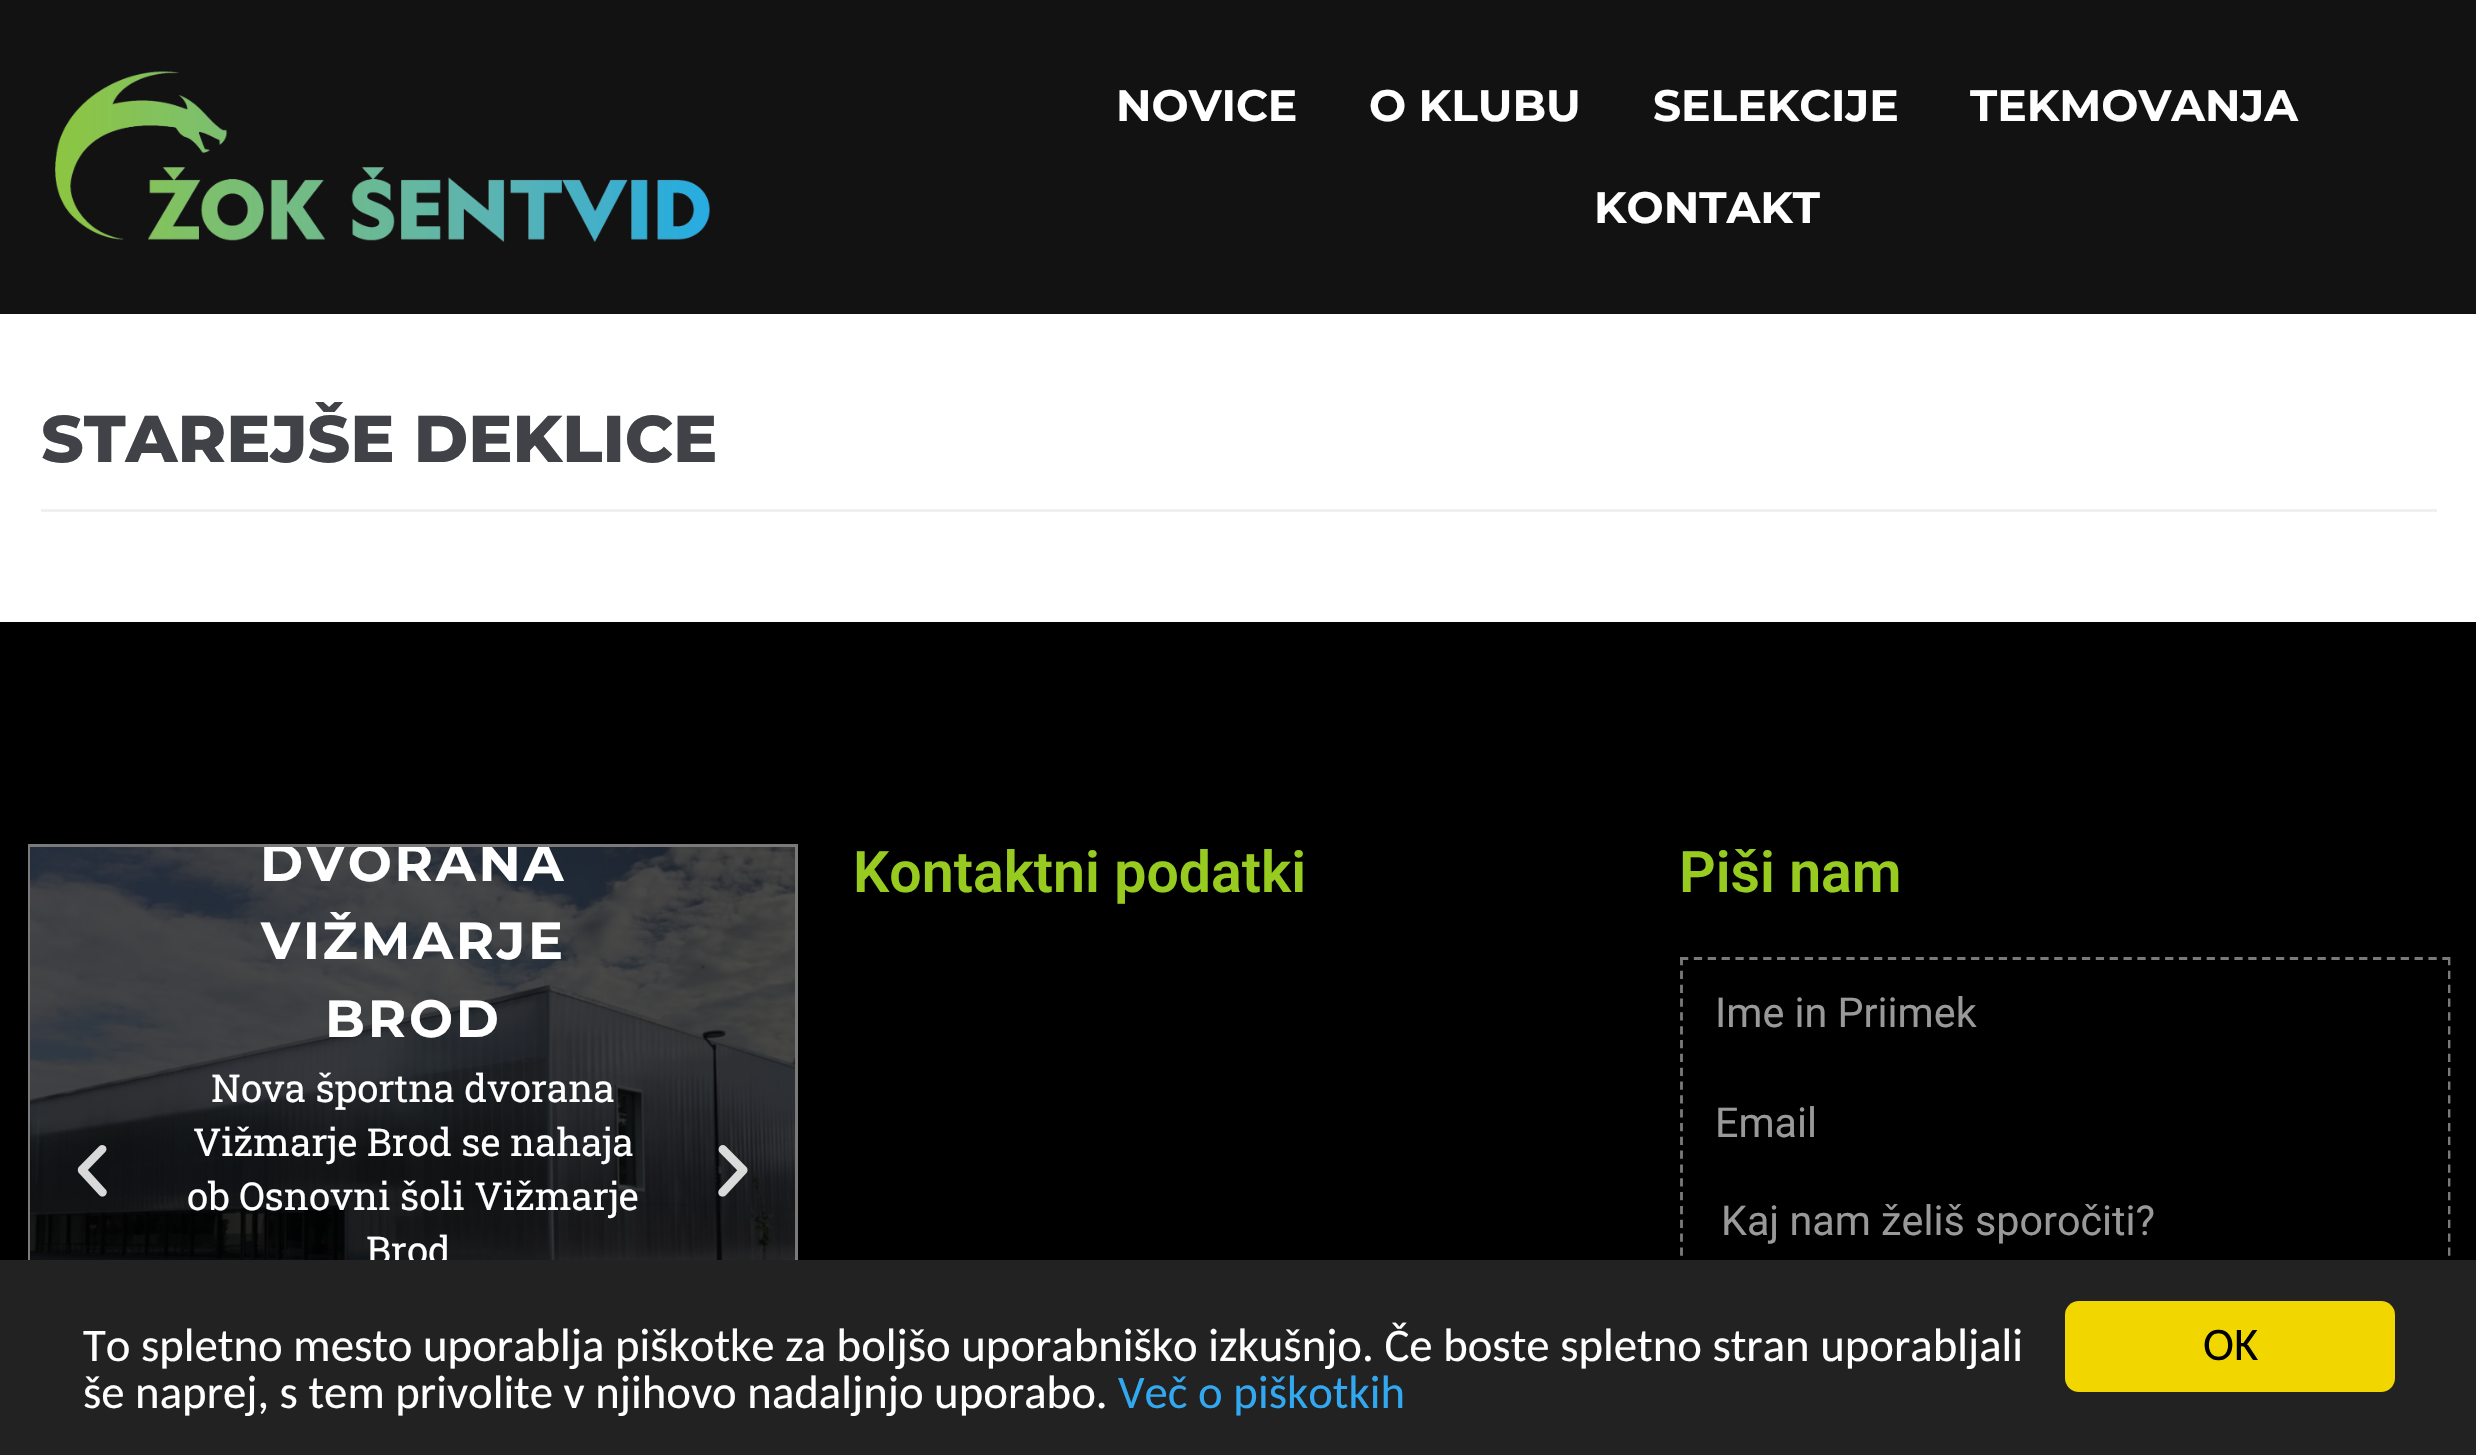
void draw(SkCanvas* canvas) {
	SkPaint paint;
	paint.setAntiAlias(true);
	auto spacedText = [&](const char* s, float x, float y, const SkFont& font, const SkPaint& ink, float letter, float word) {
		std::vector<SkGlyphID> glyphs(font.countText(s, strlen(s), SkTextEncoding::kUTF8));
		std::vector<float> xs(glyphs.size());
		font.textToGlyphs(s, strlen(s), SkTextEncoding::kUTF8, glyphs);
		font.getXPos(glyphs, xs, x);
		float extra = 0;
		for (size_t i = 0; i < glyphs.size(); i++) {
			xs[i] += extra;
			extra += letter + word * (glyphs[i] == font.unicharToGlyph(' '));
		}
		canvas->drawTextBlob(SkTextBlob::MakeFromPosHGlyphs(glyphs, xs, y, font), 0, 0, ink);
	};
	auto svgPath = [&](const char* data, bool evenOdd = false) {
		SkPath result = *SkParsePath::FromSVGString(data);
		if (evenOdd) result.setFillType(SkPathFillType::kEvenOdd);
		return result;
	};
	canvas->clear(0xffffffff);
	paint.setColor(0xff121212);
	canvas->drawRect(SkRect::MakeXYWH(0, 0, 2476, 314), paint);
	canvas->drawImageRect(SkImages::DeferredFromEncodedData(SkData::MakeFromFileName("img1.png")), SkRect::MakeXYWH(55, 71, 655, 171), SkSamplingOptions());
	SkFont f1(fontMgr->matchFamilyStyle("Montserrat", SkFontStyle::Bold()), 44);
	f1.setSubpixel(true);
	paint.setColor(0xffffffff);
	canvas->drawString("NOVICE", 1116, 121, f1, paint);
	canvas->drawString("O KLUBU", 1369, 121, f1, paint);
	canvas->drawString("SELEKCIJE", 1653, 121, f1, paint);
	canvas->drawString("TEKMOVANJA", 1970, 121, f1, paint);
	canvas->drawString("KONTAKT", 1594, 223, f1, paint);
	paint.setColor(0xfff0f0f0);
	canvas->drawRect(SkRect::MakeXYWH(41, 509, 2396, 3), paint);
	SkFont f2(fontMgr->matchFamilyStyle("Montserrat", SkFontStyle(800, SkFontStyle::kNormal_Width, SkFontStyle::kUpright_Slant)), 66);
	f2.setSubpixel(true);
	paint.setColor(0xff404248);
	canvas->drawString("STAREJŠE DEKLICE", 41, 462, f2, paint);
	paint.setColor(0xff000000);
	canvas->drawRect(SkRect::MakeXYWH(0, 622, 2476, 638), paint);
	paint.setStroke(true);
	paint.setStrokeWidth(3);
	paint.setColor(0xff7a7a7a);
	canvas->drawRect(SkRect::MakeXYWH(29.5, 845.5, 767, 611), paint);
	canvas->drawImageRect(SkImages::DeferredFromEncodedData(SkData::MakeFromFileName("img3.png")), SkRect::MakeXYWH(30, 847, 765, 413), SkSamplingOptions());
	canvas->drawImageRect(SkImages::DeferredFromEncodedData(SkData::MakeFromFileName("img2.png")), SkRect::MakeXYWH(77, 1145, 30, 52), SkSamplingOptions());
	canvas->save();
	canvas->clipRect(SkRect::MakeXYWH(30, 847, 765, 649));
	SkFont f3(fontMgr->matchFamilyStyle("Montserrat", SkFontStyle::Bold()), 52.25);
	f3.setSubpixel(true);
	paint.setStroke(false);
	paint.setColor(0xffffffff);
	spacedText("DVORANA", 260, 881, f3, paint, 2.75, 0);
	canvas->restore();
	spacedText("VIŽMARJE", 261, 959, f3, paint, 2.75, 0);
	spacedText("BROD", 325, 1037, f3, paint, 2.75, 0);
	SkFont f4(fontMgr->matchFamilyStyle("Roboto Slab", SkFontStyle::Normal()), 38.5);
	f4.setSubpixel(true);
	canvas->drawString("Nova športna dvorana", 211, 1102, f4, paint);
	canvas->drawString("Vižmarje Brod se nahaja", 193, 1156, f4, paint);
	canvas->drawString("ob Osnovni šoli Vižmarje", 187, 1210, f4, paint);
	canvas->drawString("Brod", 366, 1264, f4, paint);
	canvas->drawImageRect(SkImages::DeferredFromEncodedData(SkData::MakeFromFileName("img4.png")), SkRect::MakeXYWH(718, 1145, 30, 52), SkSamplingOptions());
	SkFont f5(fontMgr->matchFamilyStyle("Roboto", SkFontStyle(600, SkFontStyle::kNormal_Width, SkFontStyle::kUpright_Slant)), 57.25);
	f5.setSubpixel(true);
	paint.setColor(0xff97cb20);
	canvas->drawString("Kontaktni podatki", 853, 892, f5, paint);
	canvas->drawString("Piši nam", 1679, 892, f5, paint);
	paint.setStroke(true);
	paint.setStrokeWidth(2.8);
	paint.setColor(0xff7a7a7a);
	paint.setPathEffect(SkDashPathEffect::Make({{8.25f, 5.61f}}, 0));
	canvas->drawPath(svgPath("M1680 958.5H2450"), paint);
	paint.setPathEffect(nullptr);
	paint.setPathEffect(SkDashPathEffect::Make({{8.25f, 5.58f}}, 0));
	canvas->drawPath(svgPath("M2449 957V1435.5"), paint);
	paint.setPathEffect(nullptr);
	paint.setPathEffect(SkDashPathEffect::Make({{8.25f, 5.58f}}, 0));
	canvas->drawPath(svgPath("M1681.5 957V1435.5"), paint);
	paint.setPathEffect(nullptr);
	paint.setStroke(false);
	paint.setColor(0xff000000);
	canvas->drawRect(SkRect::MakeXYWH(2447, 960, 1, 296), paint);
	SkFont f6(fontMgr->matchFamilyStyle("Roboto", SkFontStyle::Normal()), 41.25);
	f6.setSubpixel(true);
	paint.setColor(0xff999999);
	canvas->drawString("Ime in Priimek", 1715, 1027, f6, paint);
	canvas->drawString("Email", 1715, 1137, f6, paint);
	canvas->drawString("Kaj nam želiš sporočiti?", 1721, 1235, f6, paint);
	paint.setColor(0xff222222);
	canvas->drawRect(SkRect::MakeXYWH(0, 1260, 2476, 195), paint);
	SkFont f7(fontMgr->matchFamilyStyle("Carlito", SkFontStyle::Normal()), 46.75);
	f7.setSubpixel(true);
	paint.setColor(0xffffffff);
	canvas->drawString("To spletno mesto uporablja piškotke za boljšo uporabniško izkušnjo. Če boste spletno stran uporabljali", 83, 1361, f7, paint);
	canvas->drawString("še naprej, s tem privolite v njihovo nadaljnjo uporabo.", 83, 1408, f7, paint);
	paint.setColor(0xff31a8f0);
	canvas->drawString("Več o piškotkih", 1118, 1408, f7, paint);
	paint.setColor(0xfff1d600);
	canvas->drawRoundRect(SkRect::MakeXYWH(2065, 1301, 330, 91), 14, 14, paint);
	paint.setColor(0xff000000);
	canvas->drawString("OK", 2203, 1360, f7, paint);
}
